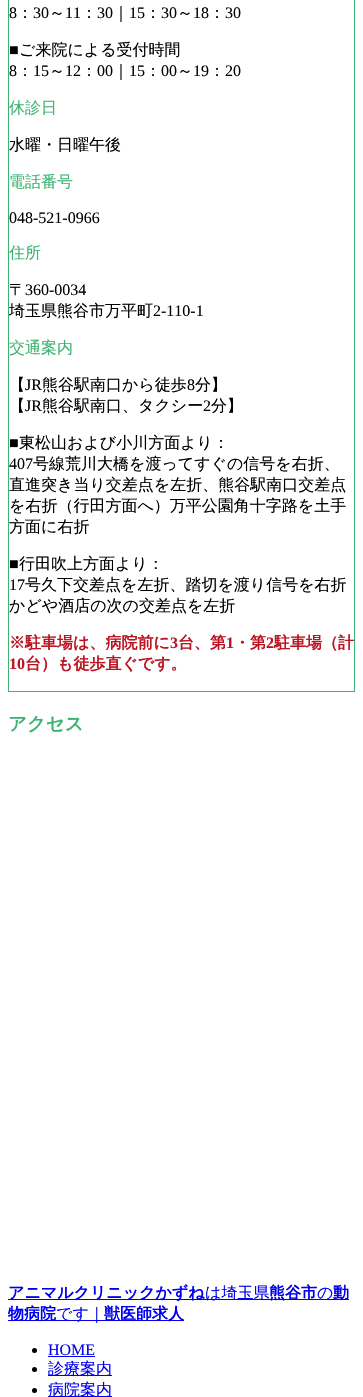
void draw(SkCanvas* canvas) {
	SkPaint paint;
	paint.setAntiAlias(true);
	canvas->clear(0xffffffff);
	paint.setStroke(true);
	paint.setStrokeWidth(1);
	paint.setColor(0xff3cb371);
	canvas->drawRect(SkRect::MakeXYWH(8.5, -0.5, 346, 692), paint);
	SkFont f1(fontMgr->matchFamilyStyle("Liberation Serif", SkFontStyle::Normal()), 16);
	f1.setSubpixel(true);
	paint.setStroke(false);
	paint.setColor(0xff000000);
	canvas->drawString("8", 9, 18, f1, paint);
	SkFont f2(fontMgr->matchFamilyStyle("WenQuanYi Zen Hei", SkFontStyle(500, SkFontStyle::kNormal_Width, SkFontStyle::kUpright_Slant)), 16);
	f2.setSubpixel(true);
	canvas->drawString("：", 17, 18, f2, paint);
	canvas->drawString("30", 33, 18, f1, paint);
	canvas->drawString("～", 49, 18, f2, paint);
	canvas->drawString("11", 65, 18, f1, paint);
	canvas->drawString("：", 81, 18, f2, paint);
	canvas->drawString("30", 97, 18, f1, paint);
	canvas->drawString("｜", 113, 18, f2, paint);
	canvas->drawString("15", 129, 18, f1, paint);
	canvas->drawString("：", 145, 18, f2, paint);
	canvas->drawString("30", 161, 18, f1, paint);
	canvas->drawString("～", 177, 18, f2, paint);
	canvas->drawString("18", 193, 18, f1, paint);
	canvas->drawString("：", 209, 18, f2, paint);
	canvas->drawString("30", 225, 18, f1, paint);
	canvas->drawString("■", 9, 55, f1, paint);
	canvas->drawString("ご来院による受付時間", 19, 55, f2, paint);
	canvas->drawString("8", 9, 76, f1, paint);
	canvas->drawString("：", 17, 76, f2, paint);
	canvas->drawString("15", 33, 76, f1, paint);
	canvas->drawString("～", 49, 76, f2, paint);
	canvas->drawString("12", 65, 76, f1, paint);
	canvas->drawString("：", 81, 76, f2, paint);
	canvas->drawString("00", 97, 76, f1, paint);
	canvas->drawString("｜", 113, 76, f2, paint);
	canvas->drawString("15", 129, 76, f1, paint);
	canvas->drawString("：", 145, 76, f2, paint);
	canvas->drawString("00", 161, 76, f1, paint);
	canvas->drawString("～", 177, 76, f2, paint);
	canvas->drawString("19", 193, 76, f1, paint);
	canvas->drawString("：", 209, 76, f2, paint);
	canvas->drawString("20", 225, 76, f1, paint);
	paint.setColor(0xff3cb371);
	canvas->drawString("休診日", 9, 113, f2, paint);
	paint.setColor(0xff000000);
	canvas->drawString("水曜・日曜午後", 9, 150, f2, paint);
	paint.setColor(0xff3cb371);
	canvas->drawString("電話番号", 9, 187, f2, paint);
	paint.setColor(0xff000000);
	canvas->drawString("048-521-0966", 9, 223, f1, paint);
	paint.setColor(0xff3cb371);
	canvas->drawString("住所", 9, 258, f2, paint);
	paint.setColor(0xff000000);
	canvas->drawString("〒", 9, 295, f2, paint);
	canvas->drawString("360-0034", 25, 295, f1, paint);
	canvas->drawString("埼玉県熊谷市万平町", 9, 316, f2, paint);
	canvas->drawString("2-110-1", 153, 316, f1, paint);
	paint.setColor(0xff3cb371);
	canvas->drawString("交通案内", 9, 353, f2, paint);
	paint.setColor(0xff000000);
	canvas->drawString("【", 9, 390, f2, paint);
	canvas->drawString("JR", 25, 390, f1, paint);
	canvas->drawString("熊谷駅南口から徒歩", 42, 390, f2, paint);
	canvas->drawString("8", 187, 390, f1, paint);
	canvas->drawString("分】", 195, 390, f2, paint);
	canvas->drawString("【", 9, 411, f2, paint);
	canvas->drawString("JR", 25, 411, f1, paint);
	canvas->drawString("熊谷駅南口、タクシー", 42, 411, f2, paint);
	canvas->drawString("2", 203, 411, f1, paint);
	canvas->drawString("分】", 211, 411, f2, paint);
	canvas->drawString("■", 9, 448, f1, paint);
	canvas->drawString("東松山および小川方面より：", 19, 448, f2, paint);
	canvas->drawString("407", 9, 469, f1, paint);
	canvas->drawString("号線荒川大橋を渡ってすぐの信号を右折、", 33, 469, f2, paint);
	canvas->drawString("直進突き当り交差点を左折、熊谷駅南口交差点", 9, 490, f2, paint);
	canvas->drawString("を右折（行田方面へ）万平公園角十字路を土手", 9, 511, f2, paint);
	canvas->drawString("方面に右折", 9, 532, f2, paint);
	canvas->drawString("■", 9, 569, f1, paint);
	canvas->drawString("行田吹上方面より：", 19, 569, f2, paint);
	canvas->drawString("17", 9, 590, f1, paint);
	canvas->drawString("号久下交差点を左折、踏切を渡り信号を右折", 25, 590, f2, paint);
	canvas->drawString("かどや酒店の次の交差点を左折", 9, 611, f2, paint);
	SkFont f3(fontMgr->matchFamilyStyle("WenQuanYi Zen Hei", SkFontStyle::Bold()), 16);
	f3.setSubpixel(true);
	paint.setColor(0xffbc1422);
	canvas->drawString("※駐車場は、病院前に", 9, 648, f3, paint);
	SkFont f4(fontMgr->matchFamilyStyle("Liberation Serif", SkFontStyle::Bold()), 16);
	f4.setSubpixel(true);
	canvas->drawString("3", 170, 648, f4, paint);
	canvas->drawString("台、第", 178, 648, f3, paint);
	canvas->drawString("1", 226, 648, f4, paint);
	canvas->drawString("・第", 234, 648, f3, paint);
	canvas->drawString("2", 266, 648, f4, paint);
	canvas->drawString("駐車場（計", 274, 648, f3, paint);
	canvas->drawString("10", 9, 669, f4, paint);
	canvas->drawString("台）も徒歩直ぐです。", 25, 669, f3, paint);
	SkFont f5(fontMgr->matchFamilyStyle("WenQuanYi Zen Hei", SkFontStyle::Bold()), 18.5);
	f5.setSubpixel(true);
	paint.setColor(0xff3cb371);
	canvas->drawString("アクセス", 8, 730, f5, paint);
	paint.setColor(0xff0000ee);
	canvas->drawRect(SkRect::MakeXYWH(8, 1299, 341, 1), paint);
	canvas->drawString("アニマルクリニックかずね", 8, 1298, f3, paint);
	canvas->drawString("は埼玉県", 205, 1298, f2, paint);
	canvas->drawString("熊谷市", 269, 1298, f3, paint);
	canvas->drawString("の", 317, 1298, f2, paint);
	canvas->drawString("動", 333, 1298, f3, paint);
	canvas->drawRect(SkRect::MakeXYWH(8, 1320, 176, 1), paint);
	canvas->drawString("物病院", 8, 1319, f3, paint);
	canvas->drawString("です｜", 56, 1319, f2, paint);
	canvas->drawString("獣医師求人", 104, 1319, f3, paint);
	paint.setColor(0xff000000);
	canvas->drawCircle(34.5, 1350.5, 2.5, paint);
	paint.setColor(0xff0000ee);
	canvas->drawString("HOME", 48, 1355, f1, paint);
	canvas->drawRect(SkRect::MakeXYWH(48, 1356, 47, 1), paint);
	paint.setColor(0xff000000);
	canvas->drawCircle(34.5, 1369.5, 2.5, paint);
	paint.setColor(0xff0000ee);
	canvas->drawRect(SkRect::MakeXYWH(48, 1375, 64, 1), paint);
	canvas->drawString("診療案内", 48, 1374, f2, paint);
	paint.setColor(0xff000000);
	canvas->drawCircle(34.5, 1390.5, 2.5, paint);
	paint.setColor(0xff0000ee);
	canvas->drawRect(SkRect::MakeXYWH(48, 1396, 64, 1), paint);
	canvas->drawString("病院案内", 48, 1395, f2, paint);
}
